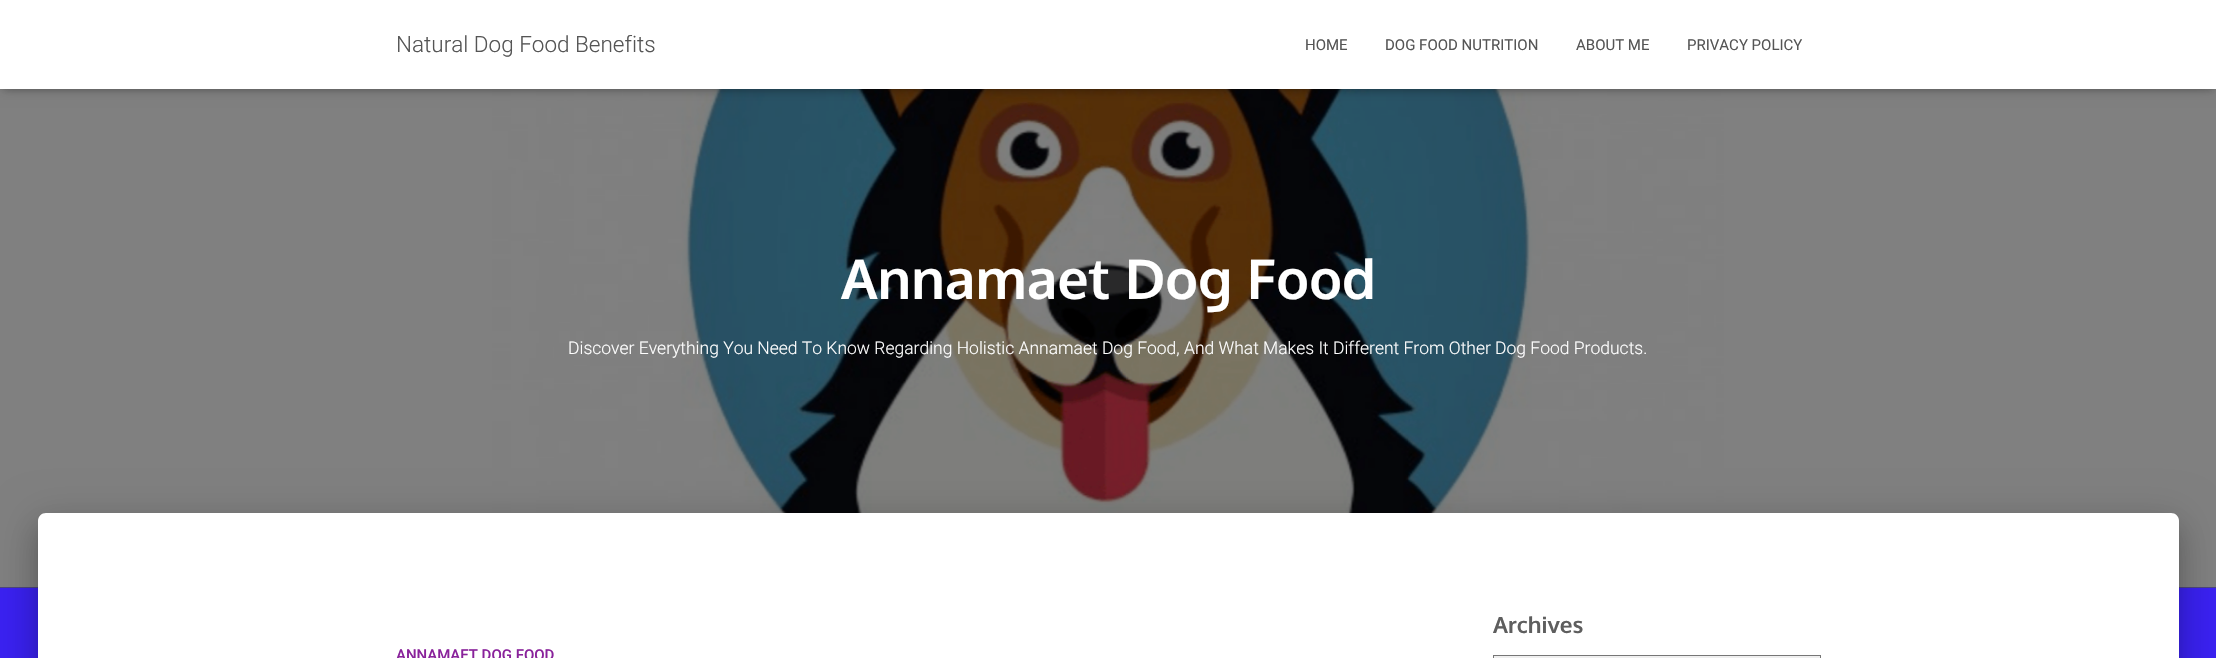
void draw(SkCanvas* canvas) {
	SkPaint paint;
	paint.setAntiAlias(true);
	auto svgPath = [&](const char* data, bool evenOdd = false) {
		SkPath result = *SkParsePath::FromSVGString(data);
		if (evenOdd) result.setFillType(SkPathFillType::kEvenOdd);
		return result;
	};
	canvas->clear(0xff3a21f2);
	paint.setColor(0xff1d1179);
	canvas->drawRect(SkRect::MakeXYWH(0, 587, 2216, 1), paint);
	canvas->drawImageRect(SkImages::DeferredFromEncodedData(SkData::MakeFromFileName("img1.png")), SkRect::MakeXYWH(0, 89, 2216, 499), SkSamplingOptions());
	paint.setColor(0x1a000000);
	paint.setMaskFilter(SkMaskFilter::MakeBlur(kNormal_SkBlurStyle, 3));
	canvas->drawRect(SkRect::MakeXYWH(3, 8, 2211, 83), paint);
	paint.setMaskFilter(nullptr);
	paint.setColor(0x1f000000);
	paint.setMaskFilter(SkMaskFilter::MakeBlur(kNormal_SkBlurStyle, 6));
	canvas->drawRect(SkRect::MakeXYWH(0, 1, 2216, 89), paint);
	paint.setMaskFilter(nullptr);
	paint.setColor(0x6b000000);
	paint.setMaskFilter(SkMaskFilter::MakeBlur(kNormal_SkBlurStyle, 6));
	canvas->drawRect(SkRect::MakeXYWH(8, 9, 2201, 74), paint);
	paint.setMaskFilter(nullptr);
	paint.setColor(0xffffffff);
	canvas->drawRect(SkRect::MakeXYWH(0, 0, 2216, 89), paint);
	SkFont f1(fontMgr->matchFamilyStyle("Roboto", SkFontStyle(300, SkFontStyle::kNormal_Width, SkFontStyle::kUpright_Slant)), 22.5);
	f1.setSubpixel(true);
	paint.setColor(0xff555555);
	canvas->drawString("Natural Dog Food Benefits", 396, 52, f1, paint);
	SkFont f2(fontMgr->matchFamilyStyle("Roboto", SkFontStyle::Normal()), 15);
	f2.setSubpixel(true);
	canvas->drawString("HOME", 1305, 50, f2, paint);
	canvas->drawString("DOG FOOD NUTRITION", 1385, 50, f2, paint);
	canvas->drawString("ABOUT ME", 1576, 50, f2, paint);
	canvas->drawString("PRIVACY POLICY", 1687, 50, f2, paint);
	SkFont f3(fontMgr->matchFamilyStyle("Oxygen", SkFontStyle::Bold()), 55);
	f3.setSubpixel(true);
	paint.setColor(0xffffffff);
	canvas->drawString("Annamaet Dog Food", 841, 299, f3, paint);
	SkFont f4(fontMgr->matchFamilyStyle("Roboto", SkFontStyle(300, SkFontStyle::kNormal_Width, SkFontStyle::kUpright_Slant)), 17.5);
	f4.setSubpixel(true);
	canvas->drawString("Discover Everything You Need To Know Regarding Holistic Annamaet Dog Food, And What Makes It Different From Other Dog Food Products.", 568, 354, f4, paint);
	paint.setColor(0x33000000);
	paint.setMaskFilter(SkMaskFilter::MakeBlur(kNormal_SkBlurStyle, 6));
	canvas->drawRoundRect(SkRect::MakeXYWH(44, 529, 2129, 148), 1, 1, paint);
	paint.setMaskFilter(nullptr);
	paint.setColor(0x1f000000);
	paint.setMaskFilter(SkMaskFilter::MakeBlur(kNormal_SkBlurStyle, 19));
	canvas->drawRoundRect(SkRect::MakeXYWH(31, 514, 2154, 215), 14, 14, paint);
	paint.setMaskFilter(nullptr);
	paint.setColor(0x24000000);
	paint.setMaskFilter(SkMaskFilter::MakeBlur(kNormal_SkBlurStyle, 15));
	canvas->drawRoundRect(SkRect::MakeXYWH(35, 530, 2146, 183), 10, 10, paint);
	paint.setMaskFilter(nullptr);
	paint.setColor(0xffffffff);
	canvas->drawPath(svgPath("M46 513H2171C2175.5 513 2179 516.5 2179 521V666H38V521C38 516.5 41.5 513 46 513Z"), paint);
	SkFont f5(fontMgr->matchFamilyStyle("Oxygen", SkFontStyle::Bold()), 22.5);
	f5.setSubpixel(true);
	paint.setColor(0xff5e5e5e);
	canvas->drawString("Archives", 1493, 633, f5, paint);
	paint.setColor(0xffefefef);
	canvas->drawRect(SkRect::MakeXYWH(1493.5, 655.5, 327, 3), paint);
	paint.setStroke(true);
	paint.setStrokeWidth(1);
	paint.setColor(0xff767676);
	canvas->drawRect(SkRect::MakeXYWH(1493.5, 655.5, 327, 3), paint);
	SkFont f6(fontMgr->matchFamilyStyle("Roboto", SkFontStyle(500, SkFontStyle::kNormal_Width, SkFontStyle::kUpright_Slant)), 15);
	f6.setSubpixel(true);
	paint.setStroke(false);
	paint.setColor(0xff89229b);
	canvas->drawString("ANNAMAET DOG FOOD", 396, 660, f6, paint);
}
